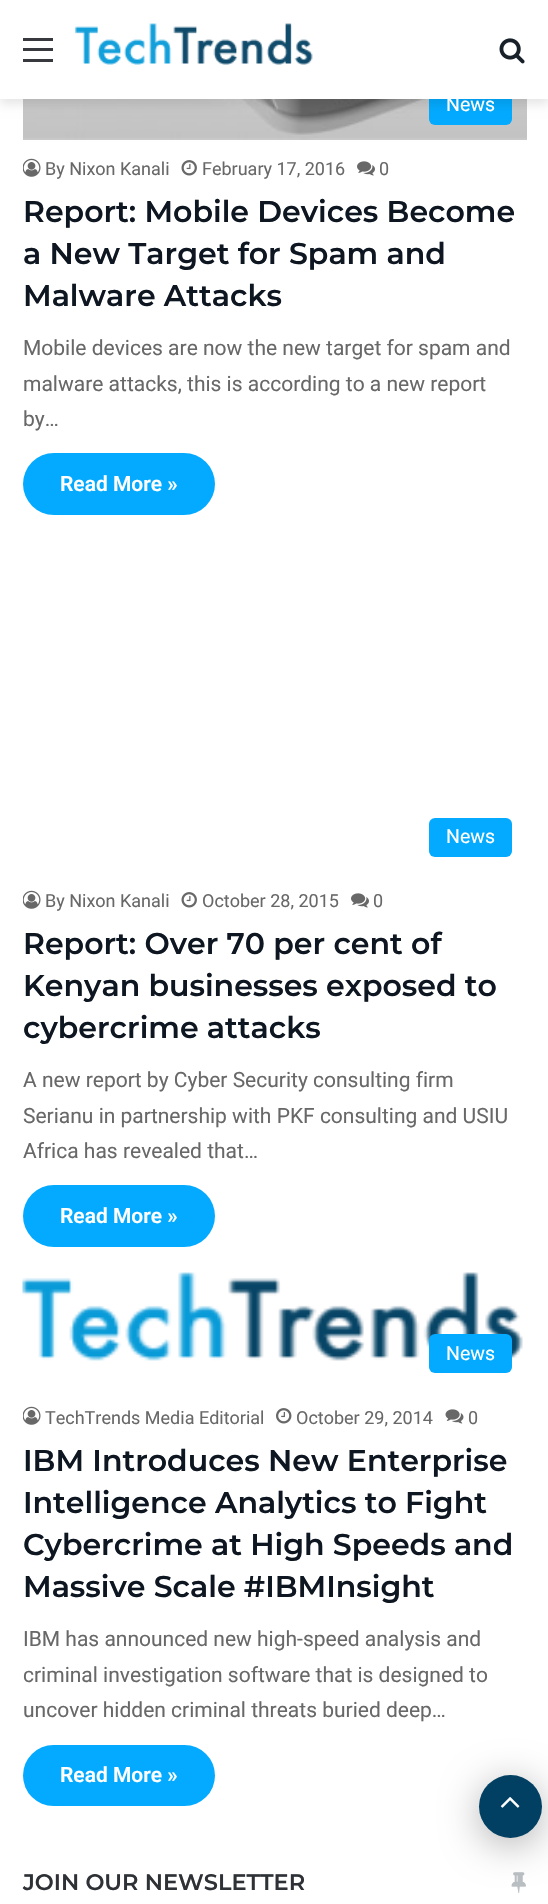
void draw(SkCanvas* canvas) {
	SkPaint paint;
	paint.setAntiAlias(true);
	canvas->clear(0xffffffff);
	canvas->drawImageRect(SkImages::DeferredFromEncodedData(SkData::MakeFromFileName("img3.png")), SkRect::MakeXYWH(23, 99, 504, 41), SkSamplingOptions());
	paint.setColor(0xff03aaff);
	canvas->drawRoundRect(SkRect::MakeXYWH(429, 86, 83, 39), 6, 6, paint);
	paint.setColor(0x1a000000);
	paint.setMaskFilter(SkMaskFilter::MakeBlur(kNormal_SkBlurStyle, 5));
	canvas->drawRect(SkRect::MakeXYWH(0, 5, 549, 99), paint);
	paint.setMaskFilter(nullptr);
	paint.setColor(0xffffffff);
	canvas->drawRect(SkRect::MakeXYWH(0, 0, 548, 99), paint);
	paint.setColor(0xff37393e);
	canvas->drawRect(SkRect::MakeXYWH(23, 48, 30, 3), paint);
	canvas->drawRect(SkRect::MakeXYWH(23, 38, 30, 3), paint);
	canvas->drawRect(SkRect::MakeXYWH(23, 59, 30, 3), paint);
	canvas->drawImageRect(SkImages::DeferredFromEncodedData(SkData::MakeFromFileName("img1.png")), SkRect::MakeXYWH(75, 23, 238, 42), SkSamplingOptions());
	canvas->drawImageRect(SkImages::DeferredFromEncodedData(SkData::MakeFromFileName("img2.png")), SkRect::MakeXYWH(499, 38, 26, 26), SkSamplingOptions());
	SkFont f1(fontMgr->matchFamilyStyle("Roboto", SkFontStyle::Normal()), 19.5);
	f1.setSubpixel(true);
	paint.setColor(0xffffffff);
	canvas->drawString("News", 446, 111, f1, paint);
	canvas->drawImageRect(SkImages::DeferredFromEncodedData(SkData::MakeFromFileName("img4.png")), SkRect::MakeXYWH(23, 158, 18, 19), SkSamplingOptions());
	SkFont f2(fontMgr->matchFamilyStyle("Roboto", SkFontStyle::Normal()), 18);
	f2.setSubpixel(true);
	paint.setColor(0xff686868);
	canvas->drawString("By Nixon Kanali", 45, 175, f2, paint);
	canvas->drawImageRect(SkImages::DeferredFromEncodedData(SkData::MakeFromFileName("img5.png")), SkRect::MakeXYWH(181, 160, 16, 16), SkSamplingOptions());
	canvas->drawString("February 17, 2016", 202, 175, f2, paint);
	canvas->drawImageRect(SkImages::DeferredFromEncodedData(SkData::MakeFromFileName("img6.png")), SkRect::MakeXYWH(357, 161, 18, 15), SkSamplingOptions());
	canvas->drawString("0", 379, 175, f2, paint);
	SkFont f3(fontMgr->matchFamilyStyle("Montserrat", SkFontStyle(600, SkFontStyle::kNormal_Width, SkFontStyle::kUpright_Slant)), 30);
	f3.setSubpixel(true);
	paint.setColor(0xff0e1721);
	canvas->drawString("Report: Mobile Devices Become", 23, 222, f3, paint);
	canvas->drawString("a New Target for Spam and", 23, 264, f3, paint);
	canvas->drawString("Malware Attacks", 23, 306, f3, paint);
	SkFont f4(fontMgr->matchFamilyStyle("Roboto", SkFontStyle::Normal()), 21);
	f4.setSubpixel(true);
	paint.setColor(0xff686868);
	canvas->drawString("Mobile devices are now the new target for spam and", 23, 355, f4, paint);
	canvas->drawString("malware attacks, this is according to a new report", 23, 391, f4, paint);
	canvas->drawString("by…", 23, 426, f4, paint);
	paint.setColor(0xff03aaff);
	canvas->drawRoundRect(SkRect::MakeXYWH(23, 453, 192, 62), 31, 31, paint);
	SkFont f5(fontMgr->matchFamilyStyle("Roboto", SkFontStyle(600, SkFontStyle::kNormal_Width, SkFontStyle::kUpright_Slant)), 21);
	f5.setSubpixel(true);
	paint.setColor(0xffffffff);
	canvas->drawString("Read More »", 60, 491, f5, paint);
	paint.setColor(0xff03aaff);
	canvas->drawRoundRect(SkRect::MakeXYWH(429, 818, 83, 39), 6, 6, paint);
	paint.setColor(0xffffffff);
	canvas->drawString("News", 446, 843, f1, paint);
	canvas->drawImageRect(SkImages::DeferredFromEncodedData(SkData::MakeFromFileName("img4.png")), SkRect::MakeXYWH(23, 890, 18, 19), SkSamplingOptions());
	paint.setColor(0xff686868);
	canvas->drawString("By Nixon Kanali", 45, 907, f2, paint);
	canvas->drawImageRect(SkImages::DeferredFromEncodedData(SkData::MakeFromFileName("img5.png")), SkRect::MakeXYWH(181, 892, 16, 16), SkSamplingOptions());
	canvas->drawString("October 28, 2015", 202, 907, f2, paint);
	canvas->drawImageRect(SkImages::DeferredFromEncodedData(SkData::MakeFromFileName("img6.png")), SkRect::MakeXYWH(351, 893, 18, 15), SkSamplingOptions());
	canvas->drawString("0", 373, 907, f2, paint);
	paint.setColor(0xff0e1721);
	canvas->drawString("Report: Over 70 per cent of", 23, 954, f3, paint);
	canvas->drawString("Kenyan businesses exposed to", 23, 996, f3, paint);
	canvas->drawString("cybercrime attacks", 23, 1038, f3, paint);
	paint.setColor(0xff686868);
	canvas->drawString("A new report by Cyber Security consulting firm", 23, 1087, f4, paint);
	canvas->drawString("Serianu in partnership with PKF consulting and USIU", 23, 1123, f4, paint);
	canvas->drawString("Africa has revealed that…", 23, 1158, f4, paint);
	paint.setColor(0xff03aaff);
	canvas->drawRoundRect(SkRect::MakeXYWH(23, 1185, 192, 62), 31, 31, paint);
	paint.setColor(0xffffffff);
	canvas->drawString("Read More »", 60, 1223, f5, paint);
	canvas->drawImageRect(SkImages::DeferredFromEncodedData(SkData::MakeFromFileName("img7.png")), SkRect::MakeXYWH(22, 1272, 501, 89), SkSamplingOptions());
	paint.setColor(0xff03aaff);
	canvas->drawRoundRect(SkRect::MakeXYWH(429, 1334, 83, 39), 6, 6, paint);
	paint.setColor(0xffffffff);
	canvas->drawString("News", 446, 1360, f1, paint);
	canvas->drawImageRect(SkImages::DeferredFromEncodedData(SkData::MakeFromFileName("img4.png")), SkRect::MakeXYWH(23, 1406, 18, 19), SkSamplingOptions());
	paint.setColor(0xff686868);
	canvas->drawString("TechTrends Media Editorial", 45, 1424, f2, paint);
	canvas->drawImageRect(SkImages::DeferredFromEncodedData(SkData::MakeFromFileName("img8.png")), SkRect::MakeXYWH(276, 1408, 16, 16), SkSamplingOptions());
	canvas->drawString("October 29, 2014", 296, 1424, f2, paint);
	canvas->drawImageRect(SkImages::DeferredFromEncodedData(SkData::MakeFromFileName("img9.png")), SkRect::MakeXYWH(445, 1409, 19, 15), SkSamplingOptions());
	canvas->drawString("0", 468, 1424, f2, paint);
	paint.setColor(0xff0e1721);
	canvas->drawString("IBM Introduces New Enterprise", 23, 1471, f3, paint);
	canvas->drawString("Intelligence Analytics to Fight", 23, 1513, f3, paint);
	canvas->drawString("Cybercrime at High Speeds and", 23, 1555, f3, paint);
	canvas->drawString("Massive Scale #IBMInsight", 23, 1597, f3, paint);
	paint.setColor(0xff686868);
	canvas->drawString("IBM has announced new high-speed analysis and", 23, 1646, f4, paint);
	canvas->drawString("criminal investigation software that is designed to", 23, 1682, f4, paint);
	canvas->drawString("uncover hidden criminal threats buried deep…", 23, 1717, f4, paint);
	paint.setColor(0xff03aaff);
	canvas->drawRoundRect(SkRect::MakeXYWH(23, 1745, 192, 61), 30.5, 30.5, paint);
	paint.setColor(0xffffffff);
	canvas->drawString("Read More »", 60, 1782, f5, paint);
	SkFont f6(fontMgr->matchFamilyStyle("Montserrat", SkFontStyle(600, SkFontStyle::kNormal_Width, SkFontStyle::kUpright_Slant)), 22.5);
	f6.setSubpixel(true);
	paint.setColor(0xff2e3136);
	canvas->drawString("JOIN OUR NEWSLETTER", 23, 1890, f6, paint);
	canvas->drawImageRect(SkImages::DeferredFromEncodedData(SkData::MakeFromFileName("img10.png")), SkRect::MakeXYWH(511, 1872, 15, 21), SkSamplingOptions());
	paint.setColor(0x4d000000);
	paint.setMaskFilter(SkMaskFilter::MakeBlur(kNormal_SkBlurStyle, 19));
	canvas->drawRoundRect(SkRect::MakeXYWH(479, 1782, 63, 63), 31.5, 31.5, paint);
	paint.setMaskFilter(nullptr);
	paint.setColor(0xff014062);
	canvas->drawCircle(510.5, 1806.5, 31.5, paint);
	canvas->drawImageRect(SkImages::DeferredFromEncodedData(SkData::MakeFromFileName("img11.png")), SkRect::MakeXYWH(500, 1797, 20, 11), SkSamplingOptions());
}
